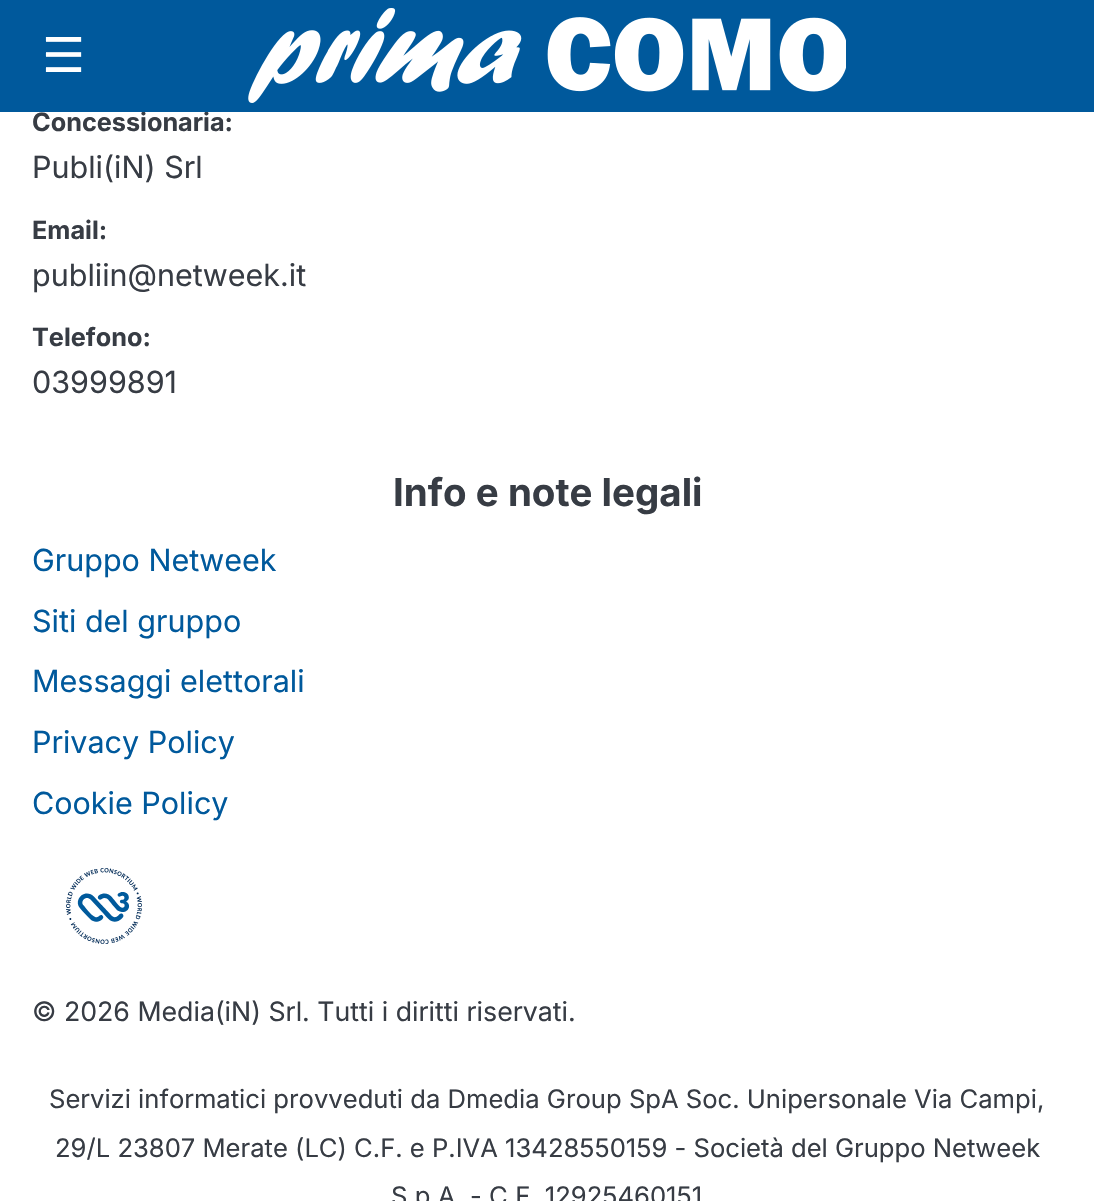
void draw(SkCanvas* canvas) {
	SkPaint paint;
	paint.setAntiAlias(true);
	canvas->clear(0xffffffff);
	SkFont f1(fontMgr->matchFamilyStyle("Inter", SkFontStyle::Bold()), 25.25);
	f1.setSubpixel(true);
	paint.setColor(0xff373c44);
	canvas->drawString("Concessionaria:", 32, 131, f1, paint);
	paint.setColor(0xff00599c);
	canvas->drawRect(SkRect::MakeXYWH(0, 0, 1094, 112), paint);
	SkFont f2(fontMgr->matchFamilyStyle("DejaVu Sans", SkFontStyle::Normal()), 48);
	f2.setSubpixel(true);
	paint.setColor(0xffffffff);
	canvas->drawString("☰", 42, 72, f2, paint);
	canvas->drawImageRect(SkImages::DeferredFromEncodedData(SkData::MakeFromFileName("img1.png")), SkRect::MakeXYWH(248, 8, 598, 95), SkSamplingOptions());
	SkFont f3(fontMgr->matchFamilyStyle("Inter", SkFontStyle::Normal()), 30.5);
	f3.setSubpixel(true);
	paint.setColor(0xff373c44);
	canvas->drawString("Publi(iN) Srl", 32, 178, f3, paint);
	canvas->drawString("Email:", 32, 239, f1, paint);
	canvas->drawString("publiin@netweek.it", 32, 286, f3, paint);
	canvas->drawString("Telefono:", 32, 346, f1, paint);
	canvas->drawString("03999891", 32, 393, f3, paint);
	SkFont f4(fontMgr->matchFamilyStyle("Inter", SkFontStyle::Bold()), 38.5);
	f4.setSubpixel(true);
	canvas->drawString("Info e note legali", 393, 506, f4, paint);
	paint.setColor(0xff00599c);
	canvas->drawString("Gruppo Netweek", 32, 571, f3, paint);
	canvas->drawString("Siti del gruppo", 32, 632, f3, paint);
	canvas->drawString("Messaggi elettorali", 32, 692, f3, paint);
	canvas->drawString("Privacy Policy", 32, 753, f3, paint);
	canvas->drawString("Cookie Policy", 32, 814, f3, paint);
	canvas->drawImageRect(SkImages::DeferredFromEncodedData(SkData::MakeFromFileName("img2.png")), SkRect::MakeXYWH(66, 868, 76, 76), SkSamplingOptions());
	SkFont f5(fontMgr->matchFamilyStyle("Inter", SkFontStyle::Normal()), 26.7);
	f5.setSubpixel(true);
	paint.setColor(0xff373c44);
	canvas->drawString("© 2026 Media(iN) Srl. Tutti i diritti riservati.", 32, 1021, f5, paint);
	SkFont f6(fontMgr->matchFamilyStyle("Inter", SkFontStyle::Normal()), 25.6);
	f6.setSubpixel(true);
	canvas->drawString("Servizi informatici provveduti da Dmedia Group SpA Soc. Unipersonale Via Campi,", 49, 1108, f6, paint);
	canvas->drawString("29/L 23807 Merate (LC) C.F. e P.IVA 13428550159 - Società del Gruppo Netweek", 55, 1157, f6, paint);
	canvas->drawString("S.p.A. - C.F. 12925460151", 391, 1205, f6, paint);
}
